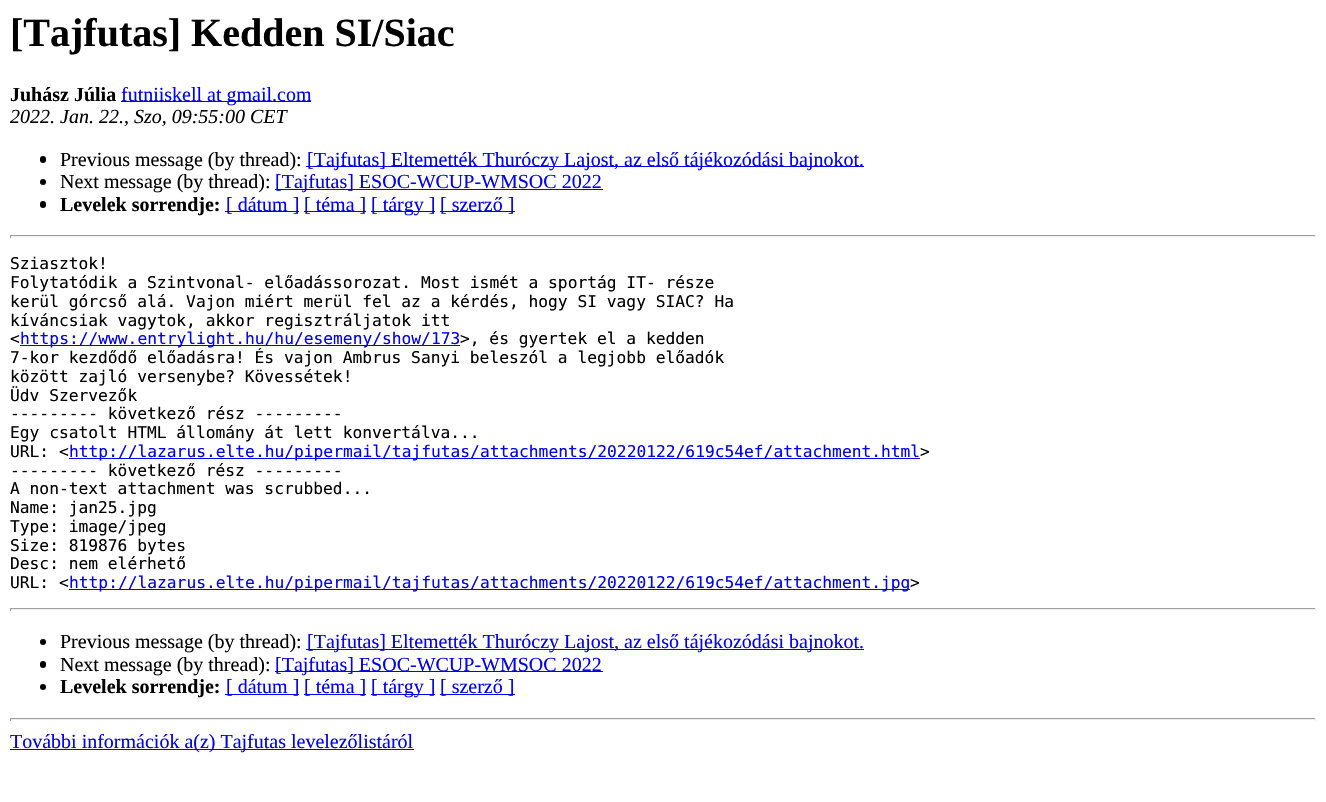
void draw(SkCanvas* canvas) {
	SkPaint paint;
	paint.setAntiAlias(true);
	canvas->clear(0xffffffff);
	SkFont f1(fontMgr->matchFamilyStyle("Liberation Serif", SkFontStyle::Bold()), 40);
	f1.setSubpixel(true);
	paint.setColor(0xff000000);
	canvas->drawString("[Tajfutas] Kedden SI/Siac", 10, 46, f1, paint);
	SkFont f2(fontMgr->matchFamilyStyle("Liberation Serif", SkFontStyle::Bold()), 20);
	f2.setSubpixel(true);
	canvas->drawString("Juhász Júlia", 10, 101, f2, paint);
	paint.setColor(0xff0000ee);
	canvas->drawRect(SkRect::MakeXYWH(121, 101, 190, 1), paint);
	SkFont f3(fontMgr->matchFamilyStyle("Liberation Serif", SkFontStyle::Normal()), 20);
	f3.setSubpixel(true);
	canvas->drawString("futniiskell at gmail.com", 121, 101, f3, paint);
	SkFont f4(fontMgr->matchFamilyStyle("Liberation Serif", SkFontStyle::Italic()), 20);
	f4.setSubpixel(true);
	paint.setColor(0xff000000);
	canvas->drawString("2022. Jan. 22., Szo, 09:55:00 CET", 10, 123, f4, paint);
	canvas->drawRoundRect(SkRect::MakeXYWH(40, 156, 6, 7), 3, 3, paint);
	canvas->drawString("Previous message (by thread):", 60, 166, f3, paint);
	paint.setColor(0xff0000ee);
	canvas->drawRect(SkRect::MakeXYWH(306, 166, 558, 1), paint);
	canvas->drawString("[Tajfutas] Eltemették Thuróczy Lajost, az első tájékozódási bajnokot.", 307, 166, f3, paint);
	paint.setColor(0xff000000);
	canvas->drawCircle(43, 182, 3, paint);
	canvas->drawString("Next message (by thread):", 60, 188, f3, paint);
	paint.setColor(0xff0000ee);
	canvas->drawRect(SkRect::MakeXYWH(275, 189, 328, 1), paint);
	canvas->drawString("[Tajfutas] ESOC-WCUP-WMSOC 2022", 275, 188, f3, paint);
	paint.setColor(0xff000000);
	canvas->drawRoundRect(SkRect::MakeXYWH(40, 201, 6, 7), 3, 3, paint);
	canvas->drawString("Levelek sorrendje:", 60, 211, f2, paint);
	paint.setColor(0xff0000ee);
	canvas->drawRect(SkRect::MakeXYWH(225, 211, 74, 1), paint);
	canvas->drawString("[ dátum ]", 226, 211, f3, paint);
	canvas->drawRect(SkRect::MakeXYWH(304, 211, 62, 1), paint);
	canvas->drawString("[ téma ]", 304, 211, f3, paint);
	canvas->drawRect(SkRect::MakeXYWH(371, 211, 64, 1), paint);
	canvas->drawString("[ tárgy ]", 371, 211, f3, paint);
	canvas->drawRect(SkRect::MakeXYWH(440, 211, 75, 1), paint);
	canvas->drawString("[ szerző ]", 440, 211, f3, paint);
	paint.setColor(0xff9f9f9f);
	canvas->drawRect(SkRect::MakeXYWH(10, 235, 1306, 1), paint);
	paint.setColor(0xffeeeeee);
	canvas->drawRect(SkRect::MakeXYWH(1315, 235, 1, 3), paint);
	canvas->drawRect(SkRect::MakeXYWH(10, 236, 1306, 1), paint);
	paint.setColor(0xff9f9f9f);
	canvas->drawRect(SkRect::MakeXYWH(10, 235, 1, 3), paint);
	SkFont f5(fontMgr->matchFamilyStyle("DejaVu Sans Mono", SkFontStyle::Normal()), 16.25);
	f5.setSubpixel(true);
	paint.setColor(0xff000000);
	canvas->drawString("Sziasztok!", 10, 269, f5, paint);
	canvas->drawString("Folytatódik a Szintvonal- előadássorozat. Most ismét a sportág IT- része", 10, 288, f5, paint);
	canvas->drawString("kerül górcső alá. Vajon miért merül fel az a kérdés, hogy SI vagy SIAC? Ha", 10, 307, f5, paint);
	canvas->drawString("kíváncsiak vagytok, akkor regisztráljatok itt", 10, 326, f5, paint);
	canvas->drawString("<", 10, 344, f5, paint);
	paint.setColor(0xff0000ee);
	canvas->drawRect(SkRect::MakeXYWH(20, 345, 440, 1), paint);
	canvas->drawString("https://www.entrylight.hu/hu/esemeny/show/173", 20, 344, f5, paint);
	paint.setColor(0xff000000);
	canvas->drawString(">, és gyertek el a kedden", 460, 344, f5, paint);
	canvas->drawString("7-kor kezdődő előadásra! És vajon Ambrus Sanyi beleszól a legjobb előadók", 10, 363, f5, paint);
	canvas->drawString("között zajló versenybe? Kövessétek!", 10, 382, f5, paint);
	canvas->drawString("Üdv Szervezők", 10, 401, f5, paint);
	canvas->drawString("--------- következő rész ---------", 10, 419, f5, paint);
	canvas->drawString("Egy csatolt HTML állomány át lett konvertálva...", 10, 438, f5, paint);
	canvas->drawString("URL: <", 10, 457, f5, paint);
	paint.setColor(0xff0000ee);
	canvas->drawRect(SkRect::MakeXYWH(69, 458, 851, 1), paint);
	canvas->drawString("http://lazarus.elte.hu/pipermail/tajfutas/attachments/20220122/619c54ef/attachment.html", 69, 457, f5, paint);
	paint.setColor(0xff000000);
	canvas->drawString(">", 920, 457, f5, paint);
	canvas->drawString("--------- következő rész ---------", 10, 476, f5, paint);
	canvas->drawString("A non-text attachment was scrubbed...", 10, 494, f5, paint);
	canvas->drawString("Name: jan25.jpg", 10, 513, f5, paint);
	canvas->drawString("Type: image/jpeg", 10, 532, f5, paint);
	canvas->drawString("Size: 819876 bytes", 10, 551, f5, paint);
	canvas->drawString("Desc: nem elérhető", 10, 569, f5, paint);
	canvas->drawString("URL: <", 10, 588, f5, paint);
	paint.setColor(0xff0000ee);
	canvas->drawRect(SkRect::MakeXYWH(69, 589, 841, 1), paint);
	canvas->drawString("http://lazarus.elte.hu/pipermail/tajfutas/attachments/20220122/619c54ef/attachment.jpg", 69, 588, f5, paint);
	paint.setColor(0xff000000);
	canvas->drawString(">", 910, 588, f5, paint);
	paint.setColor(0xff9f9f9f);
	canvas->drawRect(SkRect::MakeXYWH(10, 608, 1306, 1), paint);
	paint.setColor(0xffeeeeee);
	canvas->drawRect(SkRect::MakeXYWH(1315, 608, 1, 3), paint);
	canvas->drawRect(SkRect::MakeXYWH(10, 609, 1306, 1), paint);
	paint.setColor(0xff9f9f9f);
	canvas->drawRect(SkRect::MakeXYWH(10, 608, 1, 3), paint);
	paint.setColor(0xff000000);
	canvas->drawCircle(43, 642, 3, paint);
	canvas->drawString("Previous message (by thread):", 60, 648, f3, paint);
	paint.setColor(0xff0000ee);
	canvas->drawRect(SkRect::MakeXYWH(306, 649, 558, 1), paint);
	canvas->drawString("[Tajfutas] Eltemették Thuróczy Lajost, az első tájékozódási bajnokot.", 307, 648, f3, paint);
	paint.setColor(0xff000000);
	canvas->drawRoundRect(SkRect::MakeXYWH(40, 661, 6, 7), 3, 3, paint);
	canvas->drawString("Next message (by thread):", 60, 671, f3, paint);
	paint.setColor(0xff0000ee);
	canvas->drawRect(SkRect::MakeXYWH(275, 671, 328, 1), paint);
	canvas->drawString("[Tajfutas] ESOC-WCUP-WMSOC 2022", 275, 671, f3, paint);
	paint.setColor(0xff000000);
	canvas->drawCircle(43, 687, 3, paint);
	canvas->drawString("Levelek sorrendje:", 60, 693, f2, paint);
	paint.setColor(0xff0000ee);
	canvas->drawRect(SkRect::MakeXYWH(225, 694, 74, 1), paint);
	canvas->drawString("[ dátum ]", 226, 693, f3, paint);
	canvas->drawRect(SkRect::MakeXYWH(304, 694, 62, 1), paint);
	canvas->drawString("[ téma ]", 304, 693, f3, paint);
	canvas->drawRect(SkRect::MakeXYWH(371, 694, 64, 1), paint);
	canvas->drawString("[ tárgy ]", 371, 693, f3, paint);
	canvas->drawRect(SkRect::MakeXYWH(440, 694, 75, 1), paint);
	canvas->drawString("[ szerző ]", 440, 693, f3, paint);
	paint.setColor(0xff9f9f9f);
	canvas->drawRect(SkRect::MakeXYWH(10, 718, 1306, 1), paint);
	paint.setColor(0xffeeeeee);
	canvas->drawRect(SkRect::MakeXYWH(1315, 718, 1, 3), paint);
	canvas->drawRect(SkRect::MakeXYWH(10, 719, 1306, 1), paint);
	paint.setColor(0xff9f9f9f);
	canvas->drawRect(SkRect::MakeXYWH(10, 718, 1, 3), paint);
	paint.setColor(0xff0000ee);
	canvas->drawRect(SkRect::MakeXYWH(10, 749, 404, 1), paint);
	canvas->drawString("További információk a(z) Tajfutas levelezőlistáról", 10, 748, f3, paint);
}
